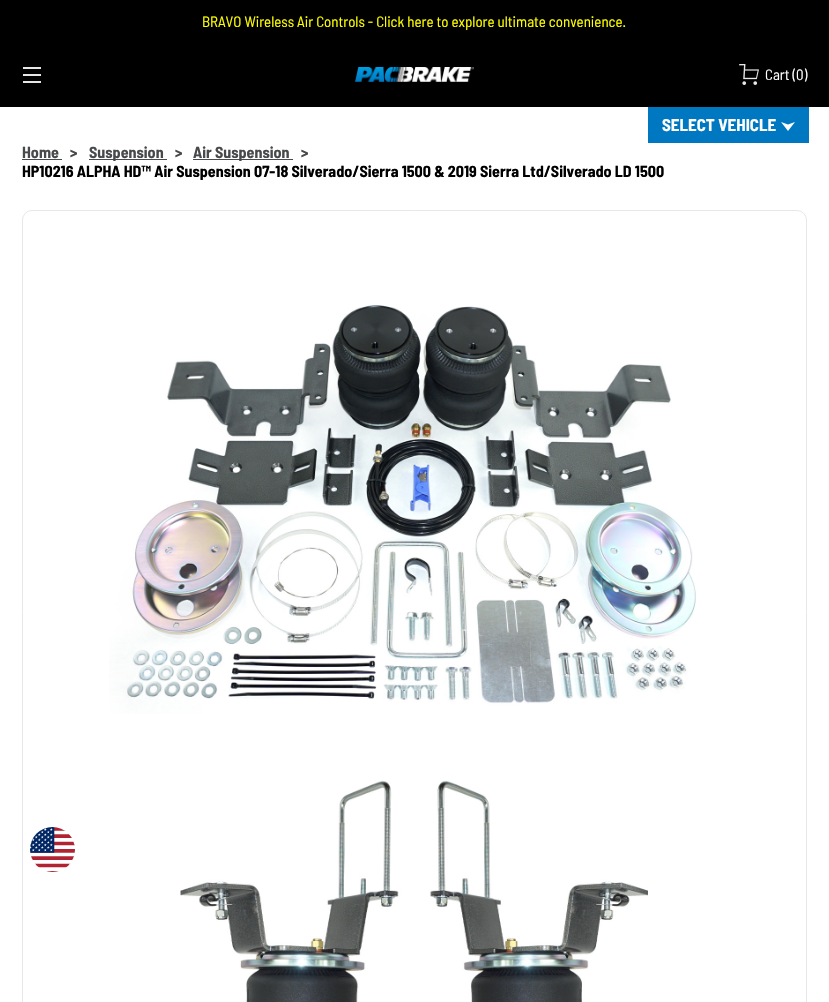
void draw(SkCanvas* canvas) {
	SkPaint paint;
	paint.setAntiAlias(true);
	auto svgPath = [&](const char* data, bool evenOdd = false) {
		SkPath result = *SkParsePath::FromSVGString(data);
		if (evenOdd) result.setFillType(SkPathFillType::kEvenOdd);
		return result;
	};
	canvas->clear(0xffffffff);
	paint.setColor(0xff000000);
	canvas->drawRect(SkRect::MakeXYWH(0, 0, 829, 107), paint);
	SkFont f1(fontMgr->matchFamilyStyle("Barlow Semi Condensed", SkFontStyle::Normal()), 15);
	f1.setSubpixel(true);
	paint.setColor(0xffffff00);
	canvas->drawString("BRAVO Wireless Air Controls - Click here to explore ultimate convenience.", 202, 27, f1, paint);
	paint.setColor(0xffe6e6e6);
	canvas->drawRect(SkRect::MakeXYWH(23, 67, 18, 2), paint);
	canvas->drawRect(SkRect::MakeXYWH(23, 74, 18, 2), paint);
	canvas->drawRect(SkRect::MakeXYWH(23, 81, 18, 2), paint);
	canvas->drawImageRect(SkImages::DeferredFromEncodedData(SkData::MakeFromFileName("img1.png")), SkRect::MakeXYWH(355, 67, 119, 15), SkSamplingOptions());
	canvas->drawImageRect(SkImages::DeferredFromEncodedData(SkData::MakeFromFileName("img2.png")), SkRect::MakeXYWH(739, 64, 20, 21), SkSamplingOptions());
	paint.setColor(0xffffffff);
	canvas->drawString("Cart (0)", 765, 80, f1, paint);
	paint.setColor(0xff0078c1);
	canvas->drawRect(SkRect::MakeXYWH(648, 107, 161, 36), paint);
	SkFont f2(fontMgr->matchFamilyStyle("Barlow Semi Condensed", SkFontStyle::Bold()), 17);
	f2.setSubpixel(true);
	paint.setColor(0xffffffff);
	canvas->drawString("SELECT VEHICLE", 662, 131, f2, paint);
	canvas->drawPath(svgPath("M795 122L788 124.5L781 122L788 131Z"), paint);
	SkFont f3(fontMgr->matchFamilyStyle("Barlow Semi Condensed", SkFontStyle::Bold()), 16);
	f3.setSubpixel(true);
	paint.setColor(0xff47494b);
	canvas->drawString("Home", 22, 158, f3, paint);
	canvas->drawRect(SkRect::MakeXYWH(22, 159, 40, 1), paint);
	canvas->drawString(">", 70, 158, f3, paint);
	canvas->drawRect(SkRect::MakeXYWH(89, 159, 78, 1), paint);
	canvas->drawString("Suspension", 89, 158, f3, paint);
	canvas->drawString(">", 175, 158, f3, paint);
	canvas->drawRect(SkRect::MakeXYWH(193, 159, 100, 1), paint);
	canvas->drawString("Air Suspension", 193, 158, f3, paint);
	canvas->drawString(">", 301, 158, f3, paint);
	paint.setColor(0xff000000);
	canvas->drawString("HP10216 ALPHA HD™ Air Suspension 07-18 Silverado/Sierra 1500 & 2019 Sierra Ltd/Silverado LD 1500", 22, 177, f3, paint);
	paint.setStroke(true);
	paint.setStrokeWidth(1);
	paint.setColor(0xffe6e7e8);
	canvas->drawRoundRect(SkRect::MakeXYWH(22.5, 210.5, 784, 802), 9.5, 9.5, paint);
	canvas->drawImageRect(SkImages::DeferredFromEncodedData(SkData::MakeFromFileName("img3.png")), SkRect::MakeXYWH(109, 305, 587, 409), SkSamplingOptions());
	canvas->drawImageRect(SkImages::DeferredFromEncodedData(SkData::MakeFromFileName("img4.png")), SkRect::MakeXYWH(180, 780, 468, 222), SkSamplingOptions());
	canvas->drawImageRect(SkImages::DeferredFromEncodedData(SkData::MakeFromFileName("img5.png")), SkRect::MakeXYWH(30, 827, 45, 45), SkSamplingOptions());
}
